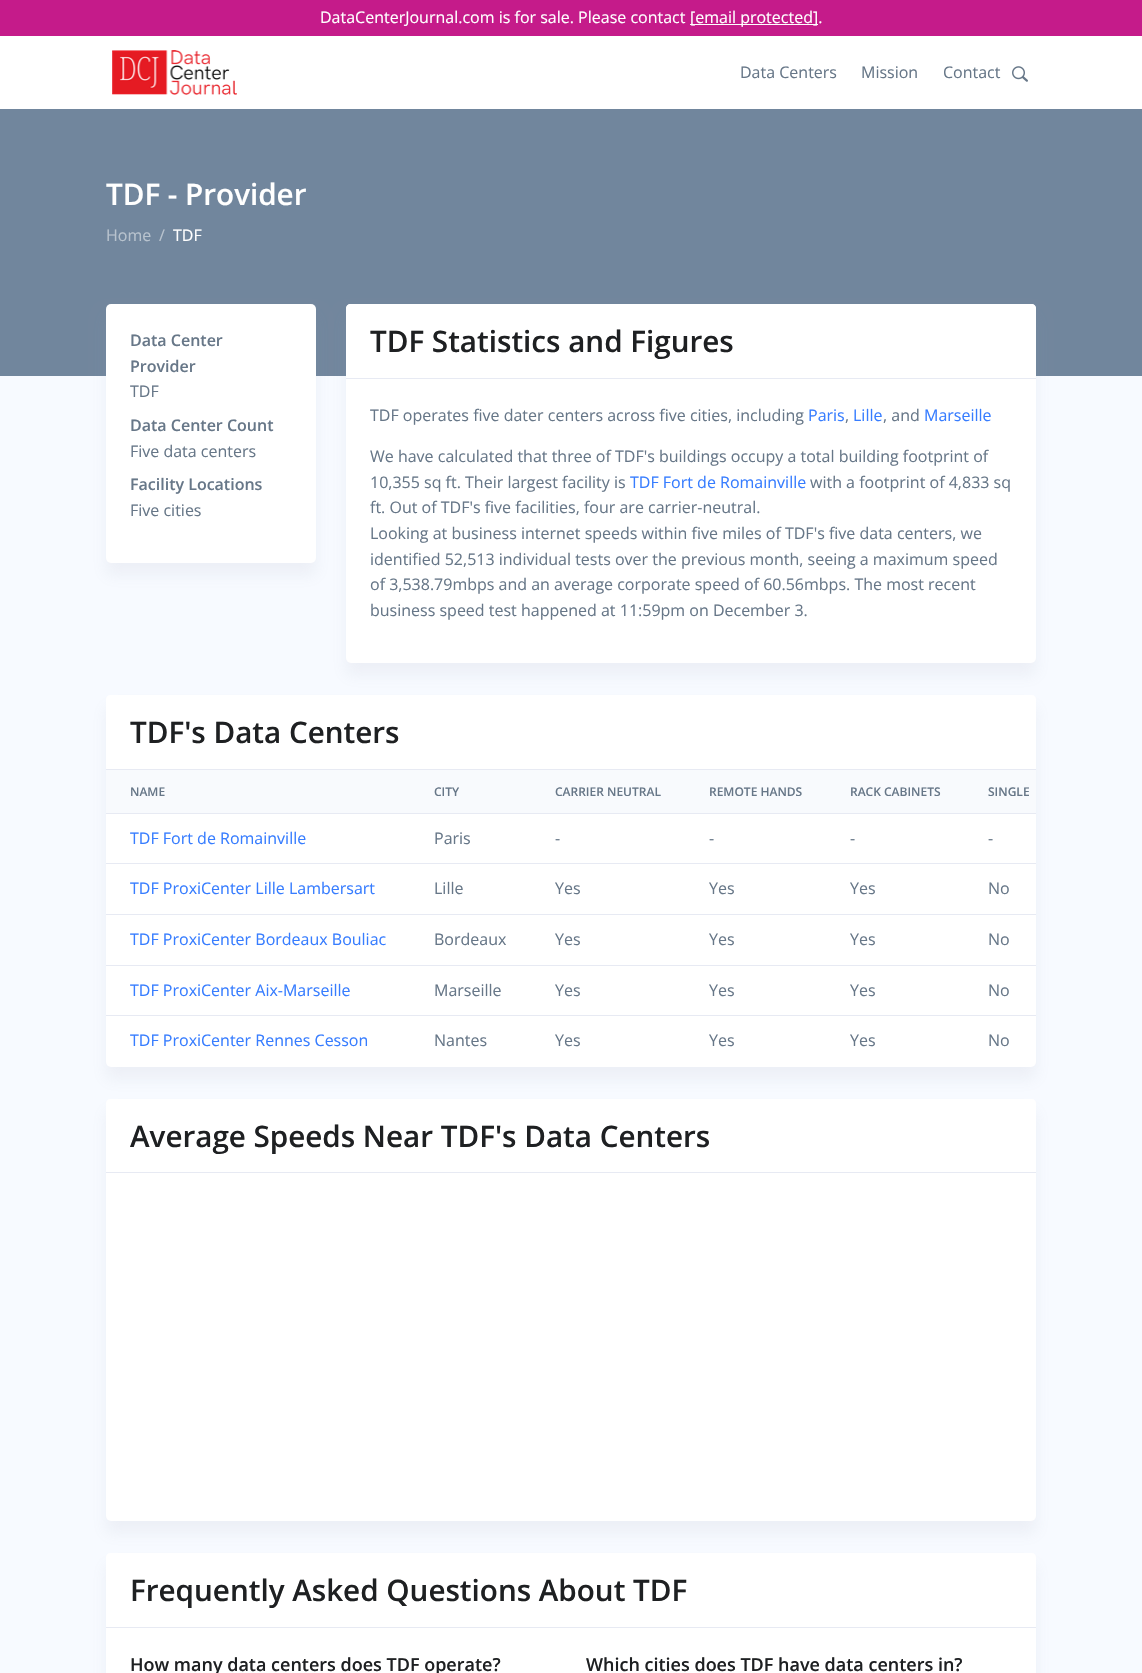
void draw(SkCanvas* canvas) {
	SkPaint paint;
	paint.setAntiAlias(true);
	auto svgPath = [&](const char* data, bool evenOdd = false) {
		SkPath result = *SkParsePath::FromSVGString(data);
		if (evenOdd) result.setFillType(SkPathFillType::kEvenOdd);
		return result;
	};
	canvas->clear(0xffffffff);
	paint.setColor(0xffc51b8a);
	canvas->drawRect(SkRect::MakeXYWH(0, 0, 1142, 36), paint);
	SkFont f1(fontMgr->matchFamilyStyle("Open Sans", SkFontStyle::Normal()), 16);
	f1.setSubpixel(true);
	paint.setColor(0xffffffff);
	canvas->drawString("DataCenterJournal.com is for sale. Please contact", 320, 23, f1, paint);
	canvas->drawRect(SkRect::MakeXYWH(690, 24, 128, 1), paint);
	canvas->drawString("[email protected].", 690, 23, f1, paint);
	canvas->drawImageRect(SkImages::DeferredFromEncodedData(SkData::MakeFromFileName("img1.png")), SkRect::MakeXYWH(112, 50, 125, 45), SkSamplingOptions());
	paint.setColor(0xff677788);
	canvas->drawString("Data Centers", 740, 78, f1, paint);
	canvas->drawString("Mission", 861, 78, f1, paint);
	canvas->drawString("Contact", 943, 78, f1, paint);
	canvas->drawImageRect(SkImages::DeferredFromEncodedData(SkData::MakeFromFileName("img2.png")), SkRect::MakeXYWH(1012, 66, 16, 16), SkSamplingOptions());
	paint.setColor(0xfff7faff);
	canvas->drawRect(SkRect::MakeXYWH(0, 376, 1142, 1297), paint);
	paint.setColor(0xff71869d);
	canvas->drawRect(SkRect::MakeXYWH(0, 109, 1142, 267), paint);
	SkFont f2(fontMgr->matchFamilyStyle("Open Sans", SkFontStyle(600, SkFontStyle::kNormal_Width, SkFontStyle::kUpright_Slant)), 29.6);
	f2.setSubpixel(true);
	paint.setColor(0xffffffff);
	canvas->drawString("TDF - Provider", 106, 205, f2, paint);
	paint.setColor(0xffb8c3ce);
	canvas->drawString("Home", 106, 241, f1, paint);
	canvas->drawString("/", 159, 241, f1, paint);
	paint.setColor(0xffffffff);
	canvas->drawString("TDF", 173, 241, f1, paint);
	paint.setColor(0x1a8c98a4);
	paint.setMaskFilter(SkMaskFilter::MakeBlur(kNormal_SkBlurStyle, 7.5));
	canvas->drawRoundRect(SkRect::MakeXYWH(106, 316, 210, 259), 5, 5, paint);
	paint.setMaskFilter(nullptr);
	paint.setColor(0xffffffff);
	canvas->drawRoundRect(SkRect::MakeXYWH(106, 304, 210, 259), 5, 5, paint);
	SkFont f3(fontMgr->matchFamilyStyle("Open Sans", SkFontStyle(600, SkFontStyle::kNormal_Width, SkFontStyle::kUpright_Slant)), 16);
	f3.setSubpixel(true);
	paint.setColor(0xff677788);
	canvas->drawString("Data Center", 130, 346, f3, paint);
	canvas->drawString("Provider", 130, 372, f3, paint);
	canvas->drawString("TDF", 130, 397, f1, paint);
	canvas->drawString("Data Center Count", 130, 431, f3, paint);
	canvas->drawString("Five data centers", 130, 457, f1, paint);
	canvas->drawString("Facility Locations", 130, 490, f3, paint);
	canvas->drawString("Five cities", 130, 516, f1, paint);
	paint.setColor(0x1a8c98a4);
	paint.setMaskFilter(SkMaskFilter::MakeBlur(kNormal_SkBlurStyle, 7.5));
	canvas->drawRoundRect(SkRect::MakeXYWH(346, 316, 690, 359), 5, 5, paint);
	paint.setMaskFilter(nullptr);
	paint.setColor(0xffffffff);
	canvas->drawRoundRect(SkRect::MakeXYWH(346, 304, 690, 359), 5, 5, paint);
	canvas->drawPath(svgPath("M350 304H1032C1034 304 1036 306 1036 308V379H346V308C346 306 348 304 350 304Z"), paint);
	paint.setColor(0xffe7eaf3);
	canvas->drawRect(SkRect::MakeXYWH(346, 378, 690, 1), paint);
	paint.setColor(0xff1e2022);
	canvas->drawString("TDF Statistics and Figures", 370, 352, f2, paint);
	paint.setColor(0xff677788);
	canvas->drawString("TDF operates five dater centers across five cities, including", 370, 421, f1, paint);
	paint.setColor(0xff377dff);
	canvas->drawString("Paris", 808, 421, f1, paint);
	paint.setColor(0xff677788);
	canvas->drawString(",", 845, 421, f1, paint);
	paint.setColor(0xff377dff);
	canvas->drawString("Lille", 853, 421, f1, paint);
	paint.setColor(0xff677788);
	canvas->drawString(", and", 883, 421, f1, paint);
	paint.setColor(0xff377dff);
	canvas->drawString("Marseille", 924, 421, f1, paint);
	paint.setColor(0xff677788);
	canvas->drawString("We have calculated that three of TDF's buildings occupy a total building footprint of", 370, 462, f1, paint);
	canvas->drawString("10,355 sq ft. Their largest facility is", 370, 488, f1, paint);
	paint.setColor(0xff377dff);
	canvas->drawString("TDF Fort de Romainville", 630, 488, f1, paint);
	paint.setColor(0xff677788);
	canvas->drawString("with a footprint of 4,833 sq", 810, 488, f1, paint);
	canvas->drawString("ft. Out of TDF's five facilities, four are carrier-neutral.", 370, 513, f1, paint);
	canvas->drawString("Looking at business internet speeds within five miles of TDF's five data centers, we", 370, 539, f1, paint);
	canvas->drawString("identified 52,513 individual tests over the previous month, seeing a maximum speed", 370, 565, f1, paint);
	canvas->drawString("of 3,538.79mbps and an average corporate speed of 60.56mbps. The most recent", 370, 590, f1, paint);
	canvas->drawString("business speed test happened at 11:59pm on December 3.", 370, 616, f1, paint);
	paint.setColor(0x1a8c98a4);
	paint.setMaskFilter(SkMaskFilter::MakeBlur(kNormal_SkBlurStyle, 7.5));
	canvas->drawRoundRect(SkRect::MakeXYWH(106, 707, 930, 372), 5, 5, paint);
	paint.setMaskFilter(nullptr);
	paint.setColor(0xffffffff);
	canvas->drawRoundRect(SkRect::MakeXYWH(106, 695, 930, 372), 5, 5, paint);
	canvas->drawPath(svgPath("M110 695H1032C1034 695 1036 697 1036 699V770H106V699C106 697 108 695 110 695Z"), paint);
	paint.setColor(0xffe7eaf3);
	canvas->drawRect(SkRect::MakeXYWH(106, 769, 930, 1), paint);
	paint.setColor(0xff1e2022);
	canvas->drawString("TDF's Data Centers", 130, 743, f2, paint);
	paint.setColor(0xfff8fafd);
	canvas->drawRect(SkRect::MakeXYWH(106, 770, 930, 43), paint);
	SkFont f4(fontMgr->matchFamilyStyle("Open Sans", SkFontStyle(600, SkFontStyle::kNormal_Width, SkFontStyle::kUpright_Slant)), 12);
	f4.setSubpixel(true);
	paint.setColor(0xff677788);
	canvas->drawString("NAME", 130, 796, f4, paint);
	canvas->drawString("CITY", 434, 796, f4, paint);
	canvas->drawString("CARRIER NEUTRAL", 555, 796, f4, paint);
	canvas->drawString("REMOTE HANDS", 709, 796, f4, paint);
	canvas->drawString("RACK CABINETS", 850, 796, f4, paint);
	canvas->drawString("SINGLE", 988, 796, f4, paint);
	paint.setColor(0xff377dff);
	canvas->drawString("TDF Fort de Romainville", 130, 844, f1, paint);
	paint.setColor(0xff677788);
	canvas->drawString("Paris", 434, 844, f1, paint);
	canvas->drawString("-", 555, 844, f1, paint);
	canvas->drawString("-", 709, 844, f1, paint);
	canvas->drawString("-", 850, 844, f1, paint);
	paint.setColor(0xffe7eaf3);
	canvas->drawRect(SkRect::MakeXYWH(106, 813, 930, 1), paint);
	paint.setColor(0xff677788);
	canvas->drawString("-", 988, 844, f1, paint);
	paint.setColor(0xff377dff);
	canvas->drawString("TDF ProxiCenter Lille Lambersart", 130, 894, f1, paint);
	paint.setColor(0xff677788);
	canvas->drawString("Lille", 434, 894, f1, paint);
	canvas->drawString("Yes", 555, 894, f1, paint);
	canvas->drawString("Yes", 709, 894, f1, paint);
	canvas->drawString("Yes", 850, 894, f1, paint);
	paint.setColor(0xffe7eaf3);
	canvas->drawRect(SkRect::MakeXYWH(106, 863, 930, 1), paint);
	paint.setColor(0xff677788);
	canvas->drawString("No", 988, 894, f1, paint);
	paint.setColor(0xff377dff);
	canvas->drawString("TDF ProxiCenter Bordeaux Bouliac", 130, 945, f1, paint);
	paint.setColor(0xff677788);
	canvas->drawString("Bordeaux", 434, 945, f1, paint);
	canvas->drawString("Yes", 555, 945, f1, paint);
	canvas->drawString("Yes", 709, 945, f1, paint);
	canvas->drawString("Yes", 850, 945, f1, paint);
	paint.setColor(0xffe7eaf3);
	canvas->drawRect(SkRect::MakeXYWH(106, 914, 930, 1), paint);
	paint.setColor(0xff677788);
	canvas->drawString("No", 988, 945, f1, paint);
	paint.setColor(0xff377dff);
	canvas->drawString("TDF ProxiCenter Aix-Marseille", 130, 996, f1, paint);
	paint.setColor(0xff677788);
	canvas->drawString("Marseille", 434, 996, f1, paint);
	canvas->drawString("Yes", 555, 996, f1, paint);
	canvas->drawString("Yes", 709, 996, f1, paint);
	canvas->drawString("Yes", 850, 996, f1, paint);
	paint.setColor(0xffe7eaf3);
	canvas->drawRect(SkRect::MakeXYWH(106, 965, 930, 1), paint);
	paint.setColor(0xff677788);
	canvas->drawString("No", 988, 996, f1, paint);
	paint.setColor(0xff377dff);
	canvas->drawString("TDF ProxiCenter Rennes Cesson", 130, 1046, f1, paint);
	paint.setColor(0xff677788);
	canvas->drawString("Nantes", 434, 1046, f1, paint);
	canvas->drawString("Yes", 555, 1046, f1, paint);
	canvas->drawString("Yes", 709, 1046, f1, paint);
	canvas->drawString("Yes", 850, 1046, f1, paint);
	paint.setColor(0xffe7eaf3);
	canvas->drawRect(SkRect::MakeXYWH(106, 1015, 930, 1), paint);
	paint.setColor(0xff677788);
	canvas->drawString("No", 988, 1046, f1, paint);
	paint.setColor(0x1a8c98a4);
	paint.setMaskFilter(SkMaskFilter::MakeBlur(kNormal_SkBlurStyle, 7.5));
	canvas->drawRoundRect(SkRect::MakeXYWH(106, 1111, 930, 422), 5, 5, paint);
	paint.setMaskFilter(nullptr);
	paint.setColor(0xffffffff);
	canvas->drawRoundRect(SkRect::MakeXYWH(106, 1099, 930, 422), 5, 5, paint);
	canvas->drawPath(svgPath("M110 1099H1032C1034 1099 1036 1101 1036 1103V1173H106V1103C106 1101 108 1099 110 1099Z"), paint);
	paint.setColor(0xffe7eaf3);
	canvas->drawRect(SkRect::MakeXYWH(106, 1172, 930, 1), paint);
	paint.setColor(0xff1e2022);
	canvas->drawString("Average Speeds Near TDF's Data Centers", 130, 1147, f2, paint);
	paint.setColor(0x1a8c98a4);
	paint.setMaskFilter(SkMaskFilter::MakeBlur(kNormal_SkBlurStyle, 7.5));
	canvas->drawRoundRect(SkRect::MakeXYWH(106, 1565, 930, 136), 5, 5, paint);
	paint.setMaskFilter(nullptr);
	paint.setColor(0xffffffff);
	canvas->drawRoundRect(SkRect::MakeXYWH(106, 1553, 930, 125), 5, 5, paint);
	canvas->drawPath(svgPath("M110 1553H1032C1034 1553 1036 1555 1036 1557V1628H106V1557C106 1555 108 1553 110 1553Z"), paint);
	paint.setColor(0xffe7eaf3);
	canvas->drawRect(SkRect::MakeXYWH(106, 1627, 930, 1), paint);
	paint.setColor(0xff1e2022);
	canvas->drawString("Frequently Asked Questions About TDF", 130, 1601, f2, paint);
	SkFont f5(fontMgr->matchFamilyStyle("Open Sans", SkFontStyle(600, SkFontStyle::kNormal_Width, SkFontStyle::kUpright_Slant)), 18);
	f5.setSubpixel(true);
	canvas->drawString("How many data centers does TDF operate?", 130, 1671, f5, paint);
	canvas->drawString("Which cities does TDF have data centers in?", 586, 1671, f5, paint);
}
